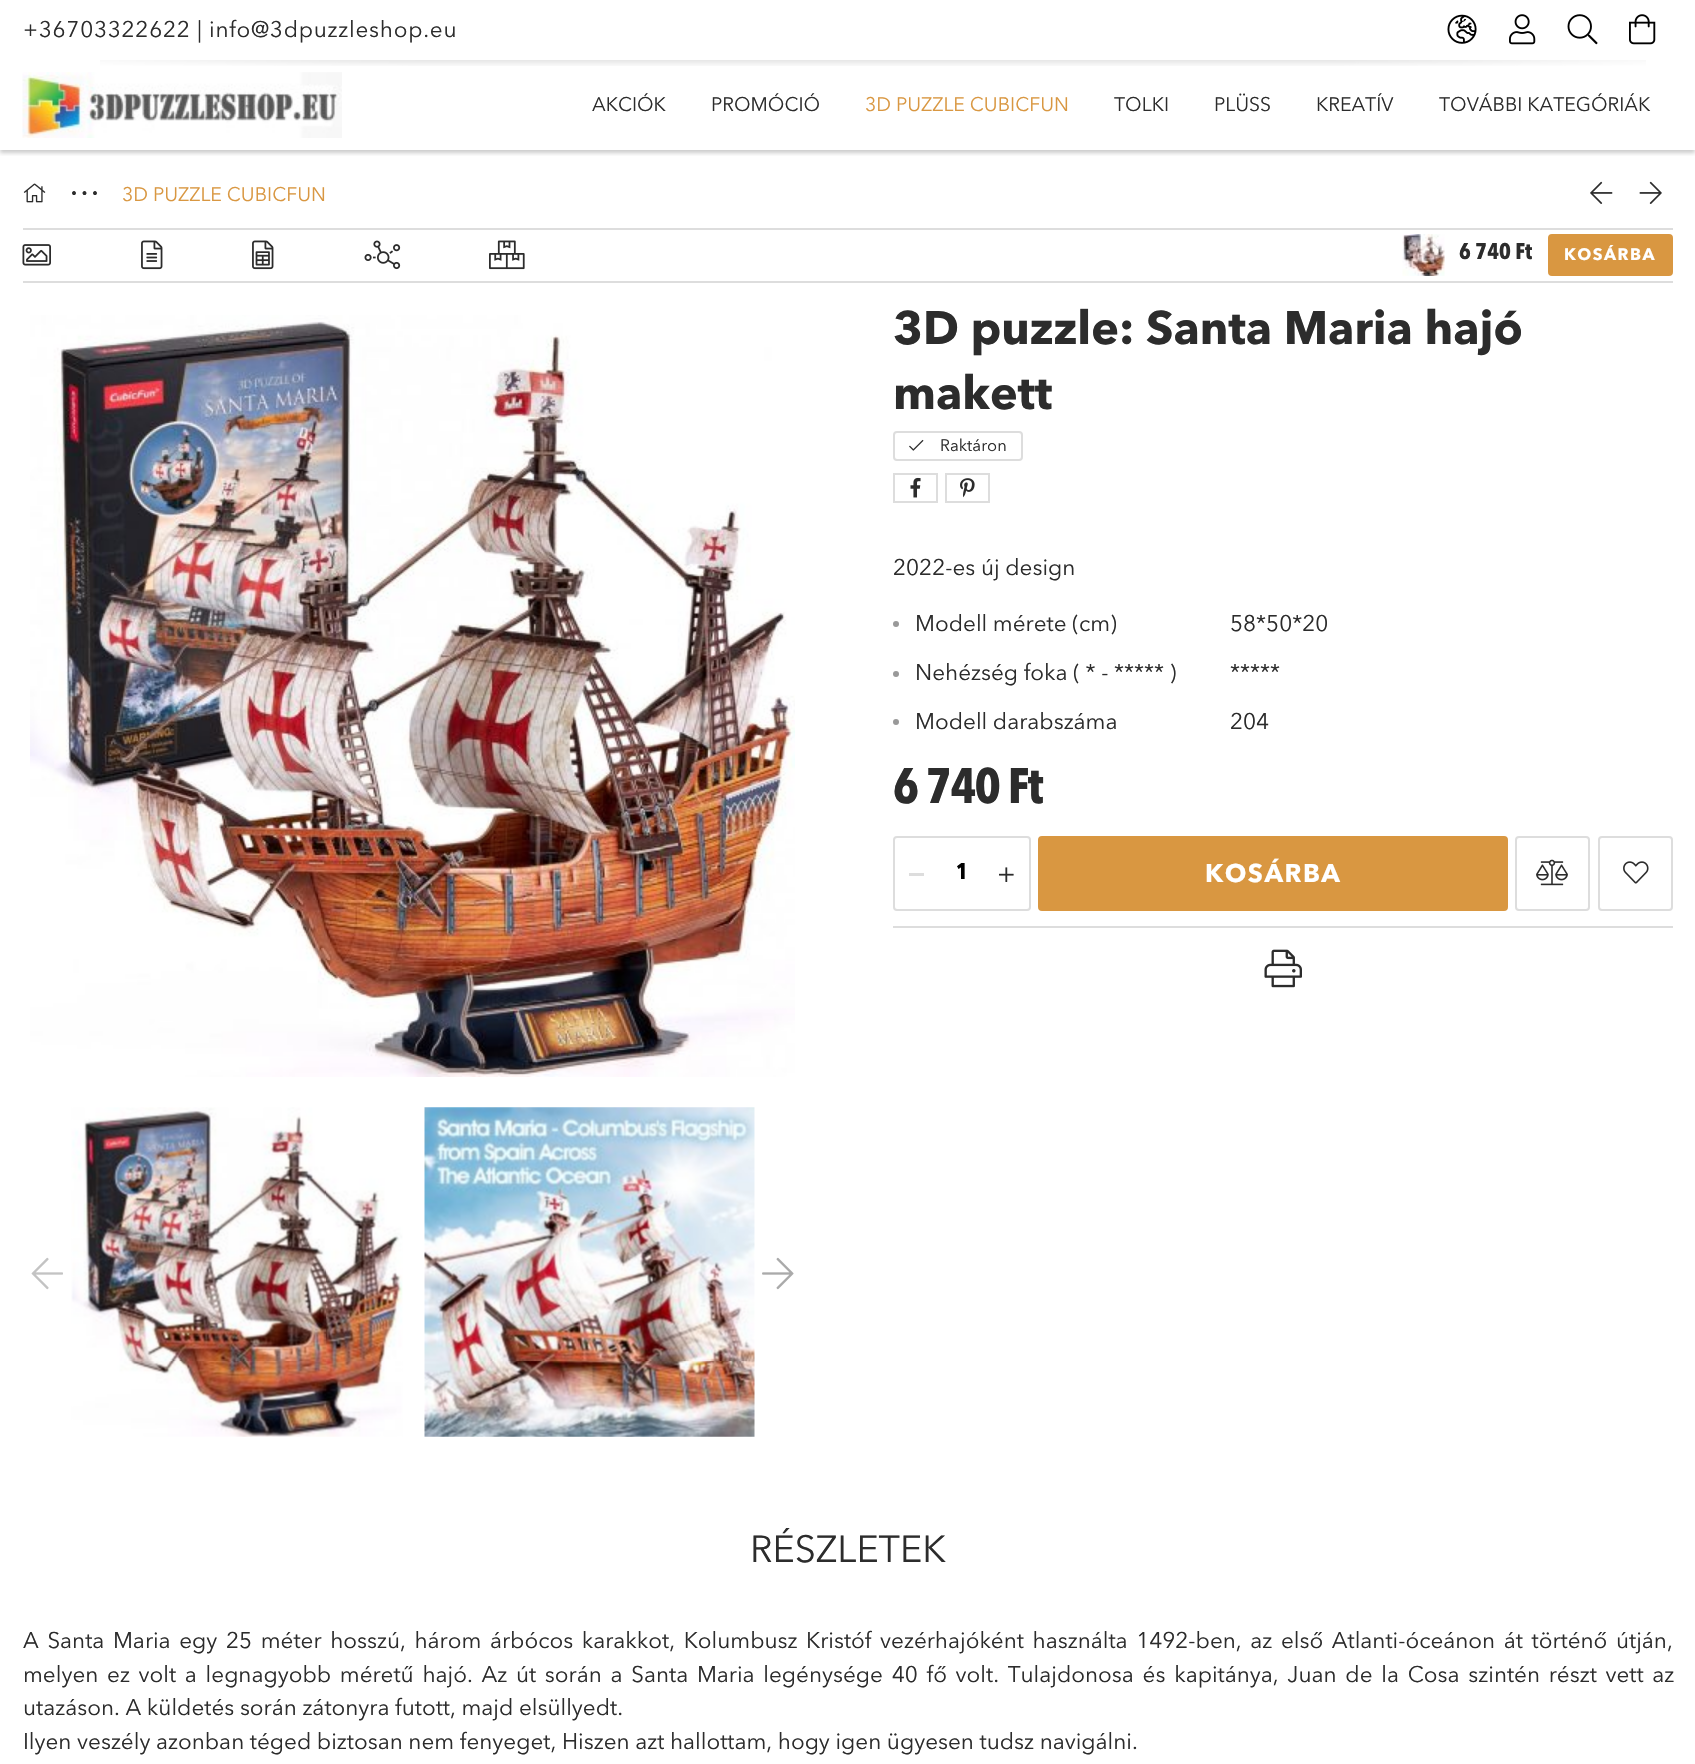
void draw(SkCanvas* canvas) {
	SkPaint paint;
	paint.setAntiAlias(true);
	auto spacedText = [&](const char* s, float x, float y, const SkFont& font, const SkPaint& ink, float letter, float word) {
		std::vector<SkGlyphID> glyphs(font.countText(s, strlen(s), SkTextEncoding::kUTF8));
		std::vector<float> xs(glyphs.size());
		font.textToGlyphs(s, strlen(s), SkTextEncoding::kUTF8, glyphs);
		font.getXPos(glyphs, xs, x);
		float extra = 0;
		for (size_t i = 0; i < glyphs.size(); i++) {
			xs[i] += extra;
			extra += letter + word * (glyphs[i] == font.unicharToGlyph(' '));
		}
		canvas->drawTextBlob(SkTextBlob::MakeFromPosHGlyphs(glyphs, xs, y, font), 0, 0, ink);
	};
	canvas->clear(0xffffffff);
	canvas->save();
	canvas->clipRect(SkRect::MakeXYWH(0, 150, 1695, 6));
	paint.setColor(0x33000000);
	paint.setMaskFilter(SkMaskFilter::MakeBlur(kNormal_SkBlurStyle, 2));
	canvas->drawRect(SkRect::MakeXYWH(0, 3, 1695, 150), paint);
	paint.setMaskFilter(nullptr);
	canvas->restore();
	SkFont f1(fontMgr->matchFamilyStyle("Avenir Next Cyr", SkFontStyle::Normal()), 22.5);
	f1.setSubpixel(true);
	paint.setColor(0xff2c2c2c);
	spacedText("+36703322622 | info@3dpuzzleshop.eu", 23, 37, f1, paint, 0.75, 0);
	canvas->drawImageRect(SkImages::DeferredFromEncodedData(SkData::MakeFromFileName("img1.png")), SkRect::MakeXYWH(1447, 14, 30, 30), SkSamplingOptions());
	canvas->drawImageRect(SkImages::DeferredFromEncodedData(SkData::MakeFromFileName("img2.png")), SkRect::MakeXYWH(1509, 14, 27, 31), SkSamplingOptions());
	canvas->drawImageRect(SkImages::DeferredFromEncodedData(SkData::MakeFromFileName("img3.png")), SkRect::MakeXYWH(1567, 14, 31, 31), SkSamplingOptions());
	canvas->drawImageRect(SkImages::DeferredFromEncodedData(SkData::MakeFromFileName("img4.png")), SkRect::MakeXYWH(1629, 14, 27, 31), SkSamplingOptions());
	canvas->drawImageRect(SkImages::DeferredFromEncodedData(SkData::MakeFromFileName("img5.png")), SkRect::MakeXYWH(100, 60, 1546, 6), SkSamplingOptions());
	canvas->drawImageRect(SkImages::DeferredFromEncodedData(SkData::MakeFromFileName("img6.png")), SkRect::MakeXYWH(22, 72, 320, 66), SkSamplingOptions());
	SkFont f2(fontMgr->matchFamilyStyle("Avenir Next Cyr", SkFontStyle::Normal()), 19.5);
	f2.setSubpixel(true);
	canvas->drawString("AKCIÓK", 592, 111, f2, paint);
	canvas->drawString("PROMÓCIÓ", 711, 111, f2, paint);
	paint.setColor(0xffd99741);
	canvas->drawString("3D PUZZLE CUBICFUN", 865, 111, f2, paint);
	paint.setColor(0xff2c2c2c);
	canvas->drawString("TOLKI", 1114, 111, f2, paint);
	canvas->drawString("PLÜSS", 1214, 111, f2, paint);
	canvas->drawString("KREATÍV", 1316, 111, f2, paint);
	canvas->drawString("TOVÁBBI KATEGÓRIÁK", 1439, 111, f2, paint);
	canvas->drawImageRect(SkImages::DeferredFromEncodedData(SkData::MakeFromFileName("img7.png")), SkRect::MakeXYWH(23, 183, 23, 20), SkSamplingOptions());
	SkFont f3(fontMgr->matchFamilyStyle("Liberation Serif", SkFontStyle::Bold()), 24);
	f3.setSubpixel(true);
	spacedText("∙∙∙", 71, 201, f3, paint, 4.5, 0);
	paint.setColor(0xffd99741);
	canvas->drawString("3D PUZZLE CUBICFUN", 122, 201, f2, paint);
	canvas->drawImageRect(SkImages::DeferredFromEncodedData(SkData::MakeFromFileName("img8.png")), SkRect::MakeXYWH(1590, 181, 23, 23), SkSamplingOptions());
	canvas->drawImageRect(SkImages::DeferredFromEncodedData(SkData::MakeFromFileName("img9.png")), SkRect::MakeXYWH(1639, 181, 23, 23), SkSamplingOptions());
	paint.setColor(0xffdddddd);
	canvas->drawRect(SkRect::MakeXYWH(23, 228, 1650, 2), paint);
	canvas->drawRect(SkRect::MakeXYWH(23, 281, 1650, 2), paint);
	canvas->drawImageRect(SkImages::DeferredFromEncodedData(SkData::MakeFromFileName("img10.png")), SkRect::MakeXYWH(22, 244, 29, 22), SkSamplingOptions());
	canvas->drawImageRect(SkImages::DeferredFromEncodedData(SkData::MakeFromFileName("img11.png")), SkRect::MakeXYWH(141, 240, 22, 30), SkSamplingOptions());
	canvas->drawImageRect(SkImages::DeferredFromEncodedData(SkData::MakeFromFileName("img12.png")), SkRect::MakeXYWH(252, 240, 22, 30), SkSamplingOptions());
	canvas->drawImageRect(SkImages::DeferredFromEncodedData(SkData::MakeFromFileName("img13.png")), SkRect::MakeXYWH(364, 240, 37, 30), SkSamplingOptions());
	canvas->drawImageRect(SkImages::DeferredFromEncodedData(SkData::MakeFromFileName("img14.png")), SkRect::MakeXYWH(489, 240, 36, 30), SkSamplingOptions());
	canvas->drawImageRect(SkImages::DeferredFromEncodedData(SkData::MakeFromFileName("img15.png")), SkRect::MakeXYWH(1402, 234, 43, 42), SkSamplingOptions());
	SkFont f4(fontMgr->matchFamilyStyle("Avenir Next", SkFontStyle::Bold()), 22.5);
	f4.setSubpixel(true);
	paint.setColor(0xff2c2c2c);
	canvas->drawString("6 740 Ft", 1459, 259, f4, paint);
	paint.setColor(0xffd99741);
	canvas->drawRoundRect(SkRect::MakeXYWH(1549, 235, 123, 40), 3, 3, paint);
	paint.setStroke(true);
	paint.setStrokeWidth(2);
	canvas->drawRoundRect(SkRect::MakeXYWH(1549, 235, 123, 40), 3, 3, paint);
	SkFont f5(fontMgr->matchFamilyStyle("Avenir Next Cyr", SkFontStyle::Bold()), 16.5);
	f5.setSubpixel(true);
	paint.setStroke(false);
	paint.setColor(0xffffffff);
	spacedText("KOSÁRBA", 1564, 260, f5, paint, 1.5, 0);
	canvas->drawImageRect(SkImages::DeferredFromEncodedData(SkData::MakeFromFileName("img16.png")), SkRect::MakeXYWH(30, 315, 765, 762), SkSamplingOptions());
	canvas->drawImageRect(SkImages::DeferredFromEncodedData(SkData::MakeFromFileName("img17.png")), SkRect::MakeXYWH(31, 1257, 32, 33), SkSamplingOptions());
	canvas->drawImageRect(SkImages::DeferredFromEncodedData(SkData::MakeFromFileName("img18.png")), SkRect::MakeXYWH(71, 1107, 332, 330), SkSamplingOptions());
	canvas->drawImageRect(SkImages::DeferredFromEncodedData(SkData::MakeFromFileName("img19.png")), SkRect::MakeXYWH(424, 1107, 331, 330), SkSamplingOptions());
	canvas->drawImageRect(SkImages::DeferredFromEncodedData(SkData::MakeFromFileName("img20.png")), SkRect::MakeXYWH(762, 1257, 32, 33), SkSamplingOptions());
	SkFont f6(fontMgr->matchFamilyStyle("Avenir Next Cyr", SkFontStyle::Bold()), 46.5);
	f6.setSubpixel(true);
	paint.setColor(0xff2c2c2c);
	canvas->drawString("3D puzzle: Santa Maria hajó", 893, 344, f6, paint);
	canvas->drawString("makett", 893, 409, f6, paint);
	paint.setStroke(true);
	paint.setColor(0xffdddddd);
	canvas->drawRoundRect(SkRect::MakeXYWH(894, 432, 128, 28), 3, 3, paint);
	canvas->drawImageRect(SkImages::DeferredFromEncodedData(SkData::MakeFromFileName("img21.png")), SkRect::MakeXYWH(909, 439, 15, 12), SkSamplingOptions());
	SkFont f7(fontMgr->matchFamilyStyle("Avenir Next Cyr", SkFontStyle::Normal()), 16.5);
	f7.setSubpixel(true);
	paint.setStroke(false);
	paint.setColor(0xff2c2c2c);
	canvas->drawString("Raktáron", 940, 451, f7, paint);
	paint.setStroke(true);
	paint.setColor(0xffdddddd);
	canvas->drawRect(SkRect::MakeXYWH(894, 474, 43, 28), paint);
	canvas->drawImageRect(SkImages::DeferredFromEncodedData(SkData::MakeFromFileName("img22.png")), SkRect::MakeXYWH(910, 477, 11, 21), SkSamplingOptions());
	canvas->drawRect(SkRect::MakeXYWH(946, 474, 43, 28), paint);
	canvas->drawImageRect(SkImages::DeferredFromEncodedData(SkData::MakeFromFileName("img23.png")), SkRect::MakeXYWH(960, 478, 15, 20), SkSamplingOptions());
	paint.setStroke(false);
	paint.setColor(0xff2c2c2c);
	canvas->drawString("2022-es új design", 893, 575, f1, paint);
	paint.setColor(0xff999999);
	canvas->drawCircle(896, 624, 3, paint);
	paint.setColor(0xff2c2c2c);
	canvas->drawString("Modell mérete (cm)", 915, 631, f1, paint);
	canvas->drawString("58*50*20", 1230, 631, f1, paint);
	paint.setColor(0xff999999);
	canvas->drawCircle(896, 674, 3, paint);
	paint.setColor(0xff2c2c2c);
	canvas->drawString("Nehézség foka ( * - ***** )", 915, 680, f1, paint);
	canvas->drawString("*****", 1230, 680, f1, paint);
	paint.setColor(0xff999999);
	canvas->drawCircle(896, 722, 3, paint);
	paint.setColor(0xff2c2c2c);
	canvas->drawString("Modell darabszáma", 915, 729, f1, paint);
	canvas->drawString("204", 1230, 729, f1, paint);
	SkFont f8(fontMgr->matchFamilyStyle("Avenir Next", SkFontStyle::Bold()), 49.5);
	f8.setSubpixel(true);
	spacedText("6 740 Ft", 893, 803, f8, paint, -1.5, 0);
	paint.setStroke(true);
	paint.setColor(0xffdddddd);
	canvas->drawRoundRect(SkRect::MakeXYWH(894, 837, 136, 73), 3, 3, paint);
	paint.setStroke(false);
	canvas->drawRect(SkRect::MakeXYWH(909, 873, 15, 3), paint);
	paint.setColor(0xff000000);
	canvas->drawString("1", 956, 879, f4, paint);
	canvas->drawImageRect(SkImages::DeferredFromEncodedData(SkData::MakeFromFileName("img24.png")), SkRect::MakeXYWH(999, 867, 15, 15), SkSamplingOptions());
	paint.setColor(0xffd99741);
	canvas->drawRoundRect(SkRect::MakeXYWH(1039, 837, 468, 73), 3, 3, paint);
	paint.setStroke(true);
	canvas->drawRoundRect(SkRect::MakeXYWH(1039, 837, 468, 73), 3, 3, paint);
	SkFont f9(fontMgr->matchFamilyStyle("Avenir Next Cyr", SkFontStyle::Bold()), 25.5);
	f9.setSubpixel(true);
	paint.setStroke(false);
	paint.setColor(0xffffffff);
	spacedText("KOSÁRBA", 1205, 882, f9, paint, 1.5, 0);
	paint.setStroke(true);
	paint.setColor(0xffdddddd);
	canvas->drawRoundRect(SkRect::MakeXYWH(1516, 837, 73, 73), 3, 3, paint);
	canvas->drawImageRect(SkImages::DeferredFromEncodedData(SkData::MakeFromFileName("img25.png")), SkRect::MakeXYWH(1536, 859, 32, 27), SkSamplingOptions());
	canvas->drawRoundRect(SkRect::MakeXYWH(1599, 837, 73, 73), 3, 3, paint);
	canvas->drawImageRect(SkImages::DeferredFromEncodedData(SkData::MakeFromFileName("img26.png")), SkRect::MakeXYWH(1623, 861, 26, 23), SkSamplingOptions());
	paint.setStroke(false);
	canvas->drawRect(SkRect::MakeXYWH(893, 926, 780, 2), paint);
	canvas->drawImageRect(SkImages::DeferredFromEncodedData(SkData::MakeFromFileName("img27.png")), SkRect::MakeXYWH(1264, 949, 38, 39), SkSamplingOptions());
	SkFont f10(fontMgr->matchFamilyStyle("Avenir Next Cyr", SkFontStyle::Normal()), 37.5);
	f10.setSubpixel(true);
	paint.setColor(0xff2c2c2c);
	canvas->drawString("RÉSZLETEK", 750, 1562, f10, paint);
	spacedText("A Santa Maria egy 25 méter hosszú, három árbócos karakkot, Kolumbusz Kristóf vezérhajóként használta 1492-ben, az első Atlanti-óceánon át történő útján,", 23, 1648, f1, paint, 0, 3);
	spacedText("melyen ez volt a legnagyobb méretű hajó. Az út során a Santa Maria legénysége 40 fő volt. Tulajdonosa és kapitánya, Juan de la Cosa szintén részt vett az", 23, 1682, f1, paint, 0, 3.1);
	canvas->drawString("utazáson. A küldetés során zátonyra futott, majd elsüllyedt.", 23, 1715, f1, paint);
	canvas->drawString("Ilyen veszély azonban téged biztosan nem fenyeget, Hiszen azt hallottam, hogy igen ügyesen tudsz navigálni.", 23, 1749, f1, paint);
}
